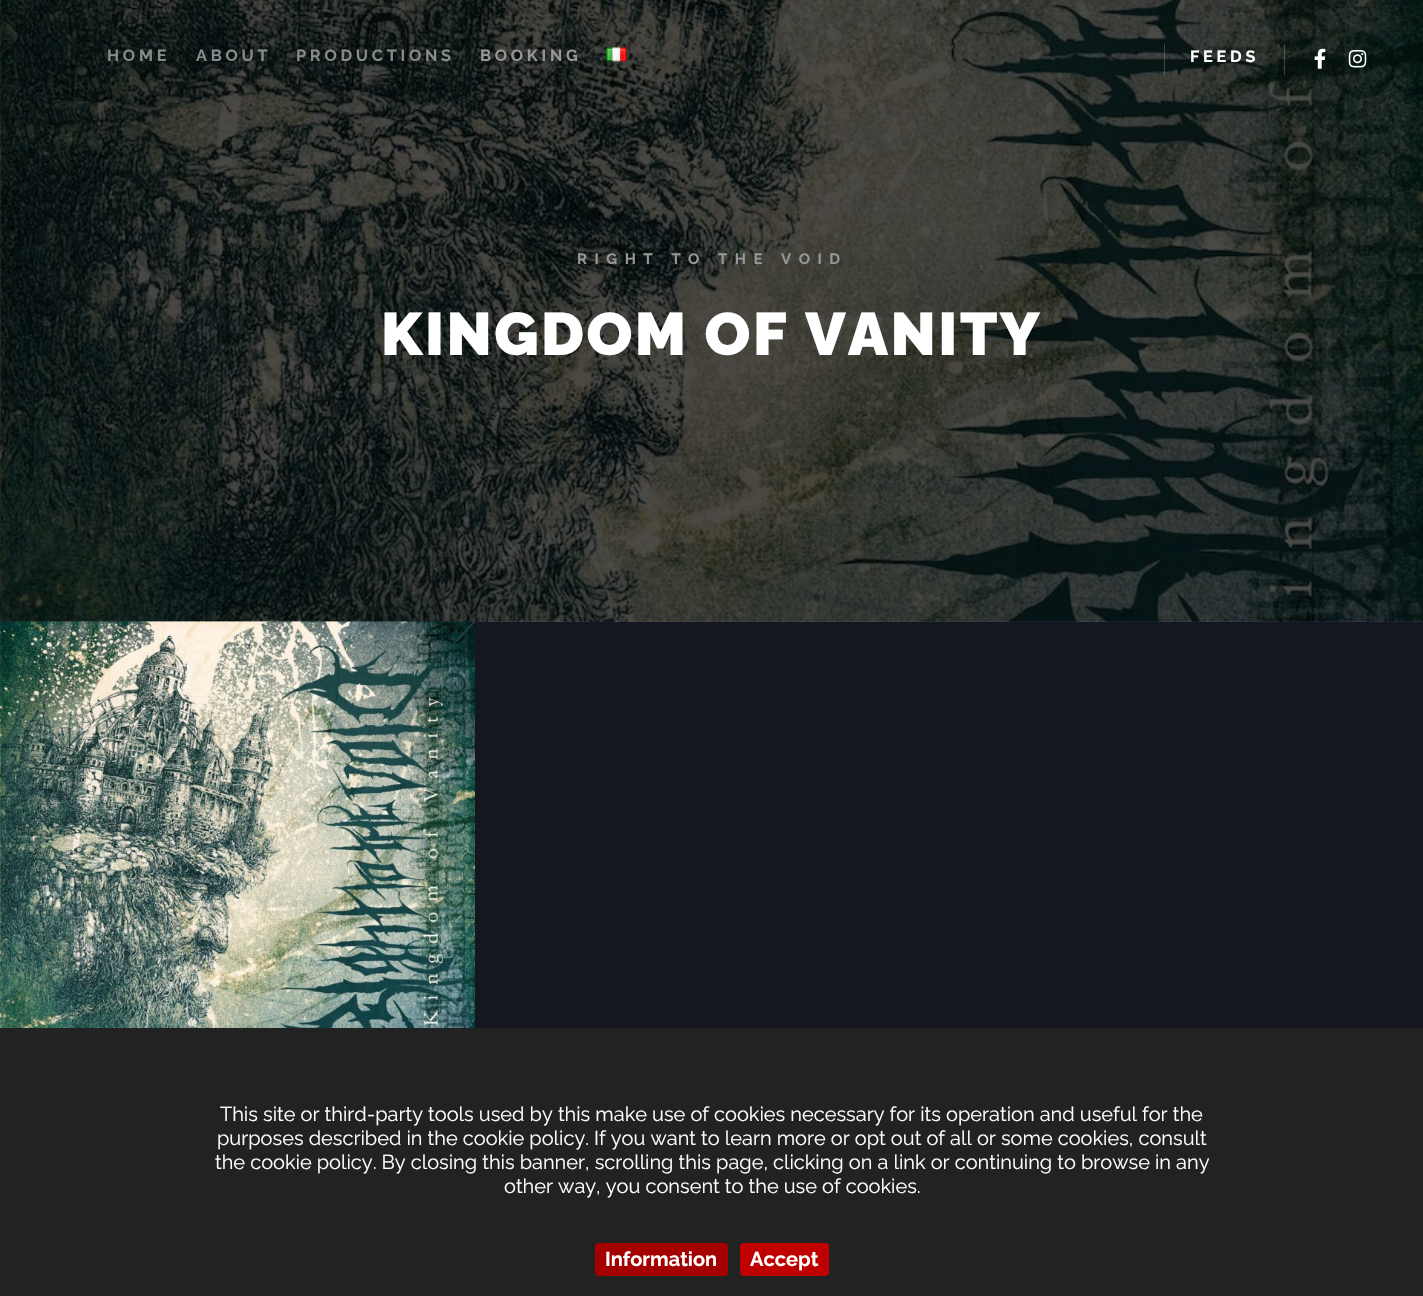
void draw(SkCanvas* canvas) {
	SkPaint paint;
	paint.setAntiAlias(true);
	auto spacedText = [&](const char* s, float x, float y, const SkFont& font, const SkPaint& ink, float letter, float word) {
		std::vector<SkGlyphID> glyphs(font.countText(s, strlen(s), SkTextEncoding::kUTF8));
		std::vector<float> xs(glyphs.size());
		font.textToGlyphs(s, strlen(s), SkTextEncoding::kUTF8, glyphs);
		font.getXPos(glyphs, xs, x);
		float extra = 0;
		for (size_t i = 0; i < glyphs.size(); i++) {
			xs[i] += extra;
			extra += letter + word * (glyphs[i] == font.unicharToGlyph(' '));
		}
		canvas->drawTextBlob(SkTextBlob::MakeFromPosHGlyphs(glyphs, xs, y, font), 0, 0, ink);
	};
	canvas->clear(0xff141720);
	canvas->drawImageRect(SkImages::DeferredFromEncodedData(SkData::MakeFromFileName("img4.png")), SkRect::MakeXYWH(0, 0, 1423, 622), SkSamplingOptions());
	SkFont f1(fontMgr->matchFamilyStyle("Raleway", SkFontStyle::Bold()), 16.25);
	f1.setSubpixel(true);
	paint.setColor(0xff878c8b);
	spacedText("HOME", 107, 61, f1, paint, 3.75, 0);
	spacedText("ABOUT", 196, 61, f1, paint, 3.75, 0);
	spacedText("PRODUCTIONS", 296, 61, f1, paint, 3.75, 0);
	paint.setColor(0xff969796);
	spacedText("BOOKING", 480, 61, f1, paint, 3.75, 0);
	canvas->drawImageRect(SkImages::DeferredFromEncodedData(SkData::MakeFromFileName("img1.png")), SkRect::MakeXYWH(606, 47, 21, 15), SkSamplingOptions());
	paint.setColor(0x33ffffff);
	canvas->drawRect(SkRect::MakeXYWH(1164, 44, 1, 31), paint);
	paint.setColor(0xffffffff);
	spacedText("FEEDS", 1190, 62, f1, paint, 3.75, 0);
	paint.setColor(0x33ffffff);
	canvas->drawRect(SkRect::MakeXYWH(1284, 44, 1, 31), paint);
	canvas->drawImageRect(SkImages::DeferredFromEncodedData(SkData::MakeFromFileName("img2.png")), SkRect::MakeXYWH(1314, 48, 12, 21), SkSamplingOptions());
	canvas->drawImageRect(SkImages::DeferredFromEncodedData(SkData::MakeFromFileName("img3.png")), SkRect::MakeXYWH(1348, 49, 19, 19), SkSamplingOptions());
	SkFont f2(fontMgr->matchFamilyStyle("Raleway", SkFontStyle::Bold()), 15);
	f2.setSubpixel(true);
	paint.setColor(0xff969796);
	spacedText("RIGHT TO THE VOID", 577, 264, f2, paint, 7.5, 0);
	SkFont f3(fontMgr->matchFamilyStyle("Raleway", SkFontStyle(900, SkFontStyle::kNormal_Width, SkFontStyle::kUpright_Slant)), 60);
	f3.setSubpixel(true);
	paint.setColor(0xffffffff);
	spacedText("KINGDOM OF VANITY", 381, 355, f3, paint, 2.5, 0);
	canvas->drawImageRect(SkImages::DeferredFromEncodedData(SkData::MakeFromFileName("img5.png")), SkRect::MakeXYWH(0, 621, 475, 407), SkSamplingOptions());
	paint.setColor(0xff222222);
	canvas->drawRect(SkRect::MakeXYWH(0, 1028, 1423, 268), paint);
	SkFont f4(fontMgr->matchFamilyStyle("Raleway", SkFontStyle::Normal()), 20);
	f4.setSubpixel(true);
	paint.setColor(0xffffffff);
	canvas->drawString("This site or third-party tools used by this make use of cookies necessary for its operation and useful for the", 220, 1121, f4, paint);
	canvas->drawString("purposes described in the cookie policy. If you want to learn more or opt out of all or some cookies, consult", 217, 1145, f4, paint);
	canvas->drawString("the cookie policy. By closing this banner, scrolling this page, clicking on a link or continuing to browse in any", 215, 1169, f4, paint);
	canvas->drawString("other way, you consent to the use of cookies.", 504, 1193, f4, paint);
	paint.setColor(0xffa40000);
	canvas->drawRoundRect(SkRect::MakeXYWH(595, 1243, 133, 33), 4, 4, paint);
	SkFont f5(fontMgr->matchFamilyStyle("Raleway", SkFontStyle::Bold()), 20);
	f5.setSubpixel(true);
	paint.setColor(0xffffffff);
	canvas->drawString("Information", 605, 1266, f5, paint);
	paint.setColor(0xffc00000);
	canvas->drawRoundRect(SkRect::MakeXYWH(740, 1243, 89, 33), 4, 4, paint);
	paint.setColor(0xffffffff);
	canvas->drawString("Accept", 750, 1266, f5, paint);
}
